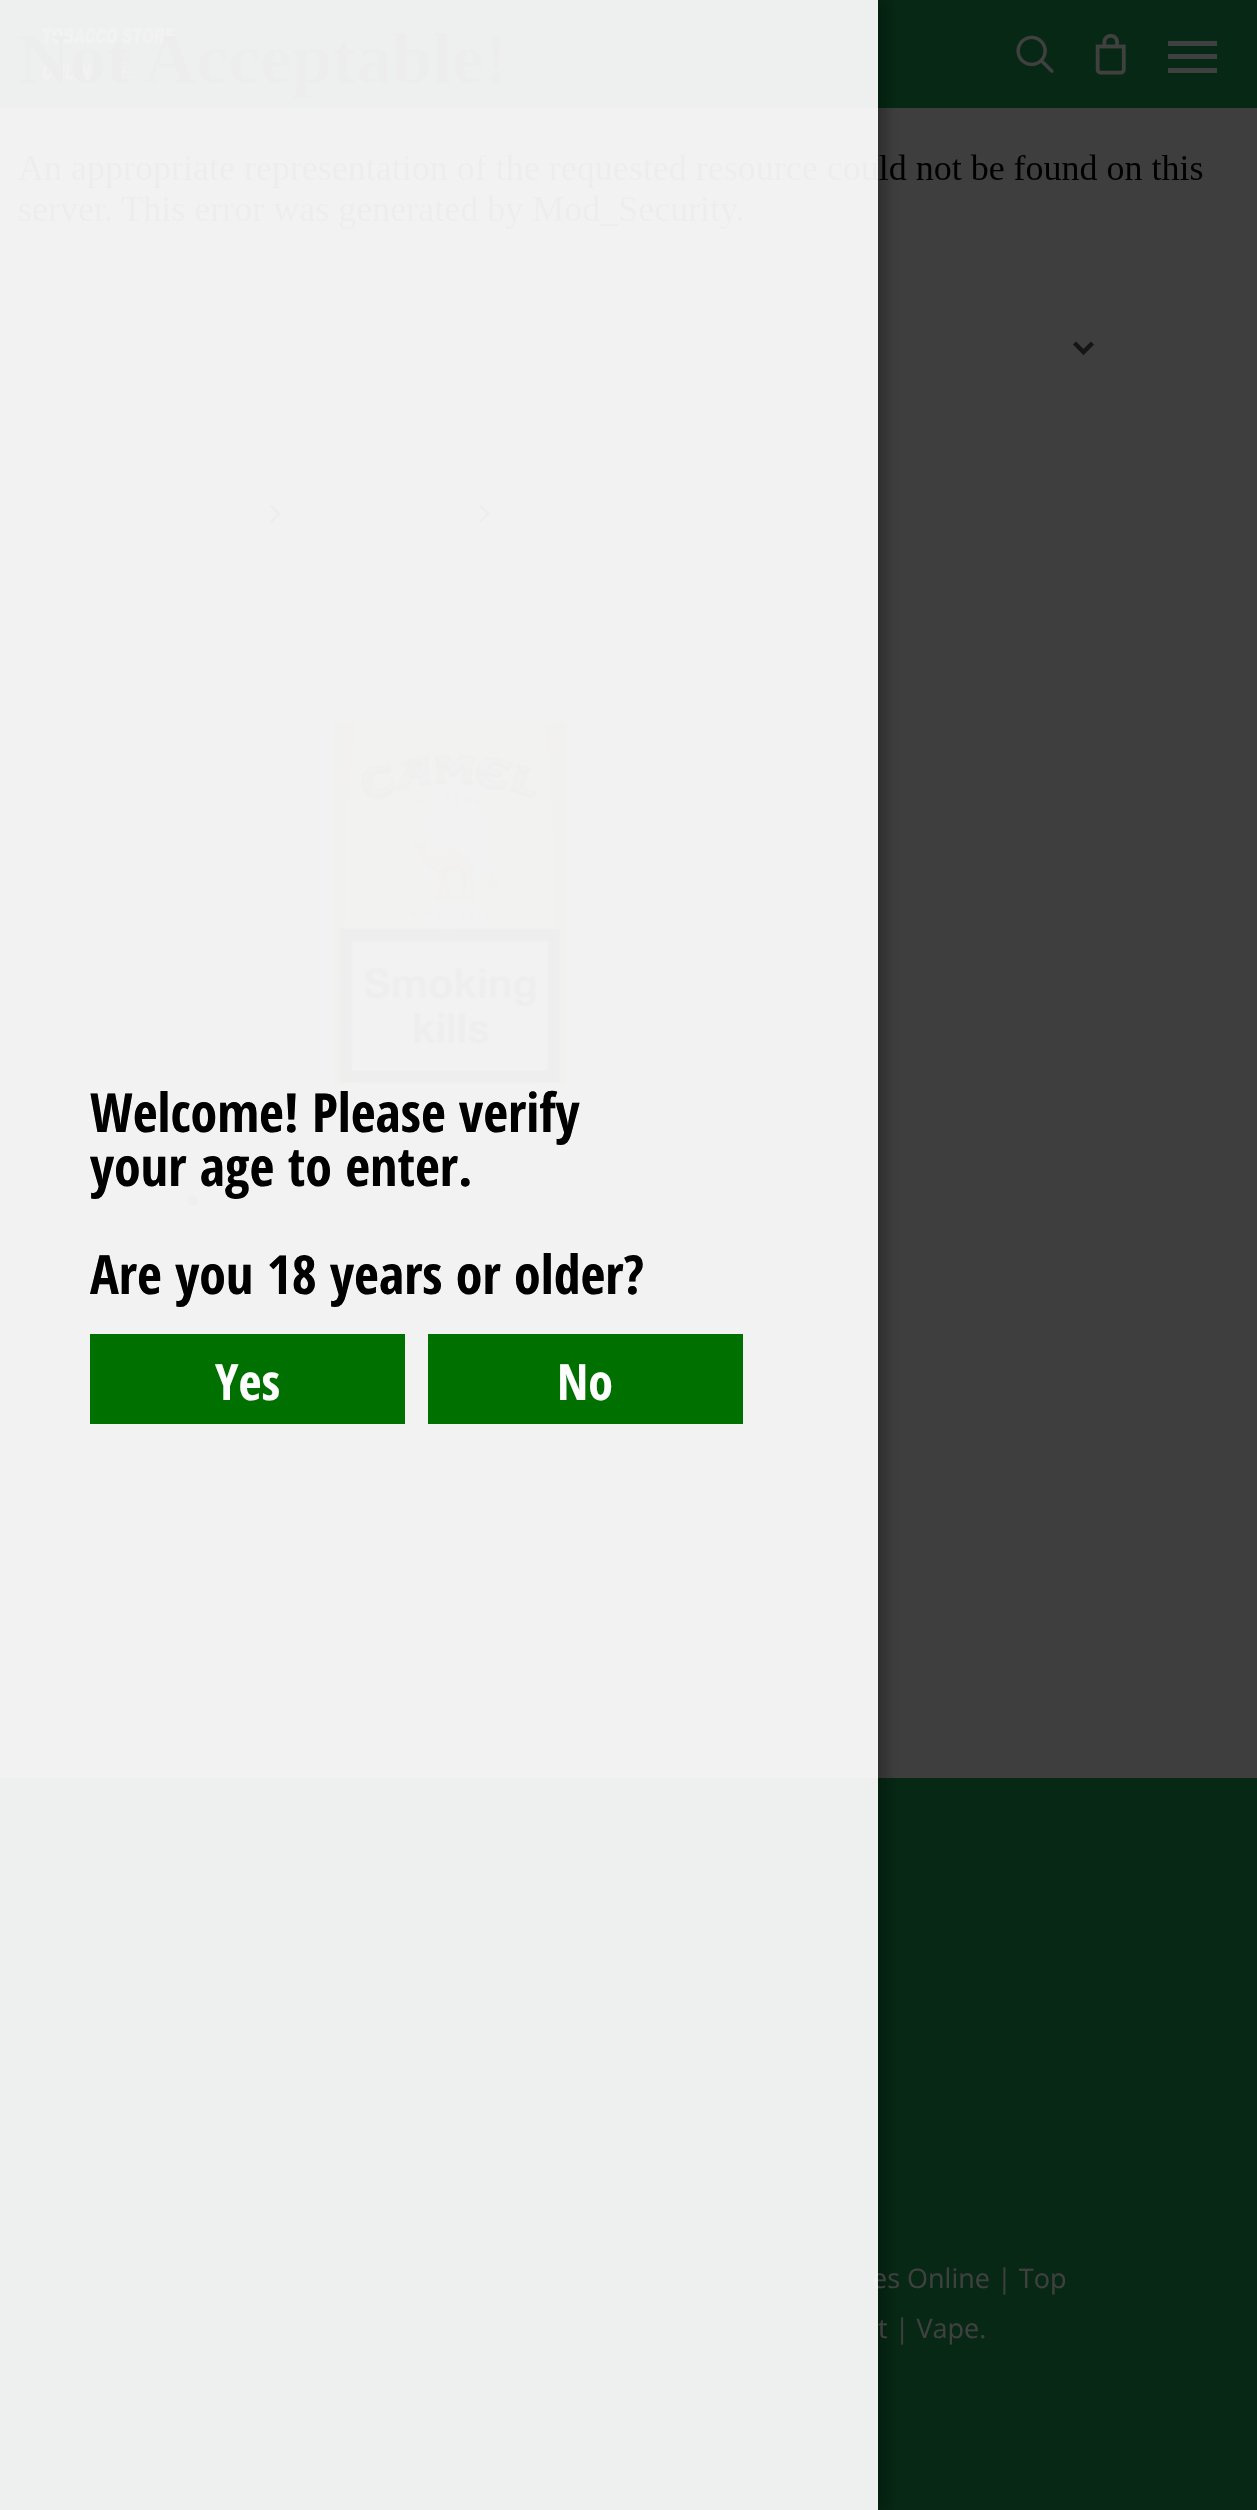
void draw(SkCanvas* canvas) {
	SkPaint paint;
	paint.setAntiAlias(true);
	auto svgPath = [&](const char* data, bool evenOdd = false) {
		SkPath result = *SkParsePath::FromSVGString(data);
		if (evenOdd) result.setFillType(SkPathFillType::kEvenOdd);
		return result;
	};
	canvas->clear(0xff062814);
	canvas->drawImageRect(SkImages::DeferredFromEncodedData(SkData::MakeFromFileName("img1.png")), SkRect::MakeXYWH(42, 27, 134, 54), SkSamplingOptions());
	canvas->drawImageRect(SkImages::DeferredFromEncodedData(SkData::MakeFromFileName("img2.png")), SkRect::MakeXYWH(1016, 35, 38, 38), SkSamplingOptions());
	canvas->drawImageRect(SkImages::DeferredFromEncodedData(SkData::MakeFromFileName("img3.png")), SkRect::MakeXYWH(1095, 34, 31, 41), SkSamplingOptions());
	paint.setColor(0xff404040);
	canvas->drawRect(SkRect::MakeXYWH(1168, 41, 49, 5), paint);
	canvas->drawRect(SkRect::MakeXYWH(1168, 68, 49, 5), paint);
	canvas->drawRect(SkRect::MakeXYWH(1168, 54, 49, 5), paint);
	paint.setColor(0xff3e3e3e);
	canvas->drawRect(SkRect::MakeXYWH(0, 108, 1257, 1670), paint);
	canvas->drawImageRect(SkImages::DeferredFromEncodedData(SkData::MakeFromFileName("img4.png")), SkRect::MakeXYWH(18, 33, 1185, 196), SkSamplingOptions());
	canvas->drawImageRect(SkImages::DeferredFromEncodedData(SkData::MakeFromFileName("img5.png")), SkRect::MakeXYWH(270, 505, 11, 18), SkSamplingOptions());
	canvas->drawImageRect(SkImages::DeferredFromEncodedData(SkData::MakeFromFileName("img6.png")), SkRect::MakeXYWH(479, 505, 11, 18), SkSamplingOptions());
	canvas->drawImageRect(SkImages::DeferredFromEncodedData(SkData::MakeFromFileName("img7.png")), SkRect::MakeXYWH(225, 677, 450, 452), SkSamplingOptions());
	paint.setColor(0xff1a1a1a);
	canvas->drawCircle(192.5, 1200.5, 5.5, paint);
	paint.setColor(0xff062412);
	canvas->drawRect(SkRect::MakeXYWH(419, 2012, 148, 2), paint);
	canvas->drawRect(SkRect::MakeXYWH(644, 2030, 195, 2), paint);
	canvas->drawRect(SkRect::MakeXYWH(437, 2126, 384, 2), paint);
	canvas->save();
	canvas->clipPath(svgPath("M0 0H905V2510H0ZM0 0H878V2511H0Z", true), true);
	paint.setColor(0x3b000000);
	paint.setMaskFilter(SkMaskFilter::MakeBlur(kNormal_SkBlurStyle, 5.5));
	canvas->drawRect(SkRect::MakeXYWH(9, 0, 878, 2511), paint);
	paint.setMaskFilter(nullptr);
	canvas->restore();
	SkFont f1(fontMgr->matchFamilyStyle("Open Sans", SkFontStyle::Normal()), 27);
	f1.setSubpixel(true);
	paint.setColor(0xff404040);
	canvas->drawString("es Online | Top", 872, 2288, f1, paint);
	paint.setColor(0xedffffff);
	canvas->drawRect(SkRect::MakeXYWH(0, 0, 878, 2510), paint);
	SkFont f2(fontMgr->matchFamilyStyle("Open Sans Condensed", SkFontStyle::Bold()), 54);
	f2.setSubpixel(true);
	paint.setColor(0xff000000);
	canvas->drawString("Welcome! Please verify", 90, 1132, f2, paint);
	canvas->drawString("your age to enter.", 90, 1186, f2, paint);
	canvas->drawString("Are you 18 years or older?", 90, 1294, f2, paint);
	paint.setColor(0xff007000);
	canvas->drawRect(SkRect::MakeXYWH(90, 1334, 315, 90), paint);
	SkFont f3(fontMgr->matchFamilyStyle("Open Sans Condensed", SkFontStyle::Bold()), 50);
	f3.setSubpixel(true);
	paint.setColor(0xffffffff);
	canvas->drawString("Yes", 215, 1400, f3, paint);
	paint.setColor(0xff007000);
	canvas->drawRect(SkRect::MakeXYWH(428, 1334, 315, 90), paint);
	paint.setColor(0xffffffff);
	canvas->drawString("No", 557, 1400, f3, paint);
	paint.setStroke(true);
	paint.setStrokeWidth(4.5);
	paint.setColor(0xff151515);
	canvas->drawPath(svgPath("M1074.5 343L1083.5 352L1092.5 343"), paint);
	paint.setStroke(false);
	paint.setColor(0xff404040);
	canvas->drawString("t | Vape.", 878, 2338, f1, paint);
}
